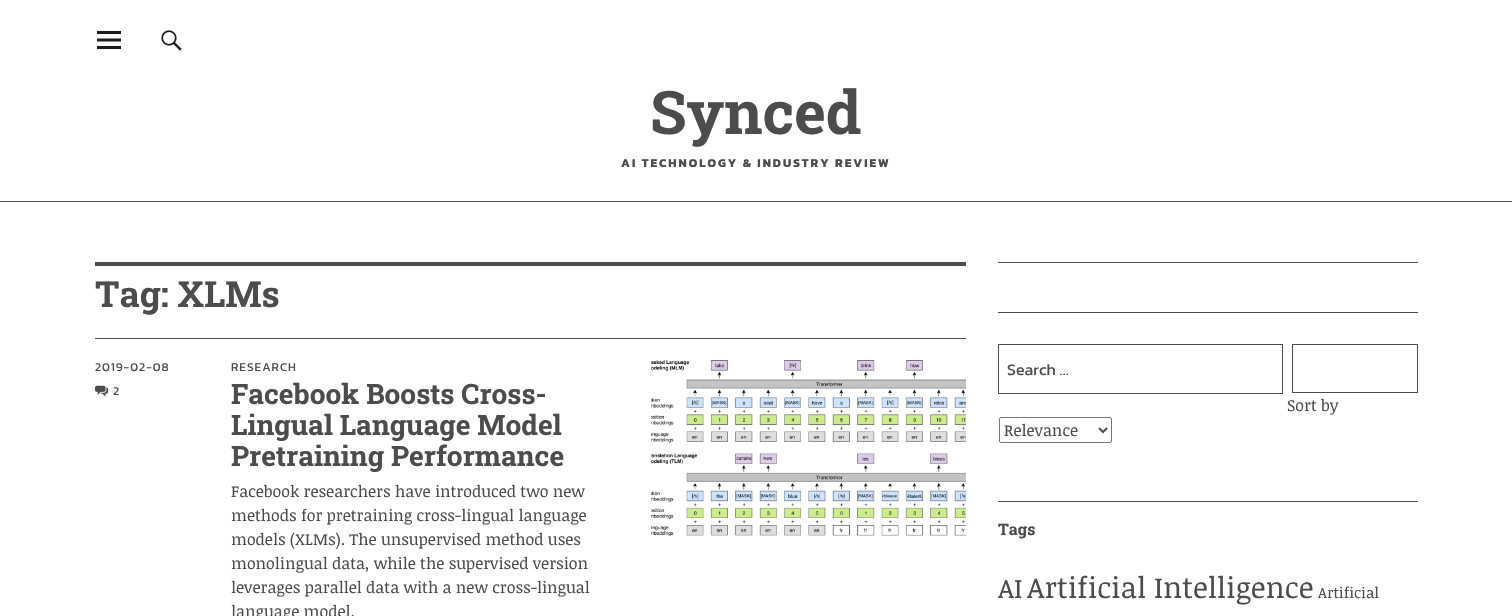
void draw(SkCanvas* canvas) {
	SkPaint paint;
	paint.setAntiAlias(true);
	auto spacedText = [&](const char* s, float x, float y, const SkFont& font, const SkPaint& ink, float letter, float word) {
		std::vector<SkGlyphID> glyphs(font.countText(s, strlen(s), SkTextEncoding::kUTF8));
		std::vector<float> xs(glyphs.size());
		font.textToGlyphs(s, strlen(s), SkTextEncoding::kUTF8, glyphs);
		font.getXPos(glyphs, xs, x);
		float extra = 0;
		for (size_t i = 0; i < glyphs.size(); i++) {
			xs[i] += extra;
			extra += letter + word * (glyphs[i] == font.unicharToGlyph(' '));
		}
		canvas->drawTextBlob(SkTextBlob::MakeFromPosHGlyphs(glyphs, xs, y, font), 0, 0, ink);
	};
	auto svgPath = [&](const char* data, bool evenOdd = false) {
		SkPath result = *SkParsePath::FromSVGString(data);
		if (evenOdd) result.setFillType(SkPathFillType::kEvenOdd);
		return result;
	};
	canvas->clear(0xffffffff);
	paint.setColor(0xff4c4c4c);
	canvas->drawRect(SkRect::MakeXYWH(0, 201, 1512, 1), paint);
	canvas->drawImageRect(SkImages::DeferredFromEncodedData(SkData::MakeFromFileName("img1.png")), SkRect::MakeXYWH(161, 30, 21, 21), SkSamplingOptions());
	canvas->drawImageRect(SkImages::DeferredFromEncodedData(SkData::MakeFromFileName("img2.png")), SkRect::MakeXYWH(97, 31, 24, 18), SkSamplingOptions());
	SkFont f1(fontMgr->matchFamilyStyle("Roboto Slab", SkFontStyle::Bold()), 60);
	f1.setSubpixel(true);
	canvas->drawString("Synced", 650, 134, f1, paint);
	SkFont f2(fontMgr->matchFamilyStyle("Kanit", SkFontStyle::Bold()), 12);
	f2.setSubpixel(true);
	spacedText("AI TECHNOLOGY & INDUSTRY REVIEW", 621, 167, f2, paint, 2, 0);
	canvas->drawRect(SkRect::MakeXYWH(95, 262, 871, 4), paint);
	SkFont f3(fontMgr->matchFamilyStyle("Roboto Slab", SkFontStyle::Bold()), 36);
	f3.setSubpixel(true);
	canvas->drawString("Tag: XLMs", 95, 307, f3, paint);
	canvas->drawRect(SkRect::MakeXYWH(95, 338, 871, 1), paint);
	SkFont f4(fontMgr->matchFamilyStyle("Kanit", SkFontStyle::Normal()), 12);
	f4.setSubpixel(true);
	spacedText("2019-02-08", 95, 371, f4, paint, 1, 0);
	canvas->drawImageRect(SkImages::DeferredFromEncodedData(SkData::MakeFromFileName("img3.png")), SkRect::MakeXYWH(95, 385, 14, 12), SkSamplingOptions());
	spacedText("2", 113, 395, f4, paint, 1, 0);
	spacedText("RESEARCH", 231, 371, f4, paint, 1, 0);
	SkFont f5(fontMgr->matchFamilyStyle("Roboto Slab", SkFontStyle::Bold()), 28);
	f5.setSubpixel(true);
	canvas->drawString("Facebook Boosts Cross-", 231, 404, f5, paint);
	canvas->drawString("Lingual Language Model", 231, 435, f5, paint);
	canvas->drawString("Pretraining Performance", 231, 466, f5, paint);
	SkFont f6(fontMgr->matchFamilyStyle("Noticia Text", SkFontStyle::Normal()), 16);
	f6.setSubpixel(true);
	canvas->drawString("Facebook researchers have introduced two new", 231, 497, f6, paint);
	canvas->drawString("methods for pretraining cross-lingual language", 231, 521, f6, paint);
	canvas->drawString("models (XLMs). The unsupervised method uses", 231, 545, f6, paint);
	canvas->drawString("monolingual data, while the supervised version", 231, 569, f6, paint);
	canvas->drawString("leverages parallel data with a new cross-lingual", 231, 593, f6, paint);
	canvas->drawString("language model.", 231, 617, f6, paint);
	canvas->drawImageRect(SkImages::DeferredFromEncodedData(SkData::MakeFromFileName("img4.png")), SkRect::MakeXYWH(651, 360, 315, 176), SkSamplingOptions());
	canvas->drawRect(SkRect::MakeXYWH(998, 262, 420, 1), paint);
	canvas->drawRect(SkRect::MakeXYWH(998, 312, 420, 1), paint);
	paint.setStroke(true);
	paint.setStrokeWidth(1);
	canvas->drawRect(SkRect::MakeXYWH(998.5, 344.5, 284, 49), paint);
	SkFont f7(fontMgr->matchFamilyStyle("Kanit", SkFontStyle::Normal()), 16);
	f7.setSubpixel(true);
	paint.setStroke(false);
	canvas->drawString("Search …", 1007, 375, f7, paint);
	paint.setStroke(true);
	canvas->drawRect(SkRect::MakeXYWH(1292.5, 344.5, 125, 48), paint);
	paint.setStroke(false);
	canvas->drawString("Sort by", 1287, 411, f6, paint);
	paint.setStroke(true);
	paint.setColor(0xff767676);
	canvas->drawRoundRect(SkRect::MakeXYWH(999.5, 417.5, 112, 25), 1.5, 1.5, paint);
	paint.setStrokeWidth(2);
	paint.setColor(0xff4c4c4c);
	canvas->drawPath(svgPath("M1099 428L1103 432L1107 428"), paint);
	paint.setStroke(false);
	canvas->drawString("Relevance", 1004, 436, f6, paint);
	canvas->drawRect(SkRect::MakeXYWH(998, 501, 420, 1), paint);
	SkFont f8(fontMgr->matchFamilyStyle("Roboto Slab", SkFontStyle::Bold()), 16);
	f8.setSubpixel(true);
	canvas->drawString("Tags", 998, 535, f8, paint);
	SkFont f9(fontMgr->matchFamilyStyle("Noticia Text", SkFontStyle::Normal()), 27);
	f9.setSubpixel(true);
	canvas->drawString("AI", 998, 598, f9, paint);
	SkFont f10(fontMgr->matchFamilyStyle("Noticia Text", SkFontStyle::Normal()), 29.25);
	f10.setSubpixel(true);
	canvas->drawString("Artificial Intelligence", 1027, 598, f10, paint);
	SkFont f11(fontMgr->matchFamilyStyle("Noticia Text", SkFontStyle::Normal()), 15);
	f11.setSubpixel(true);
	canvas->drawString("Artificial", 1318, 598, f11, paint);
}
